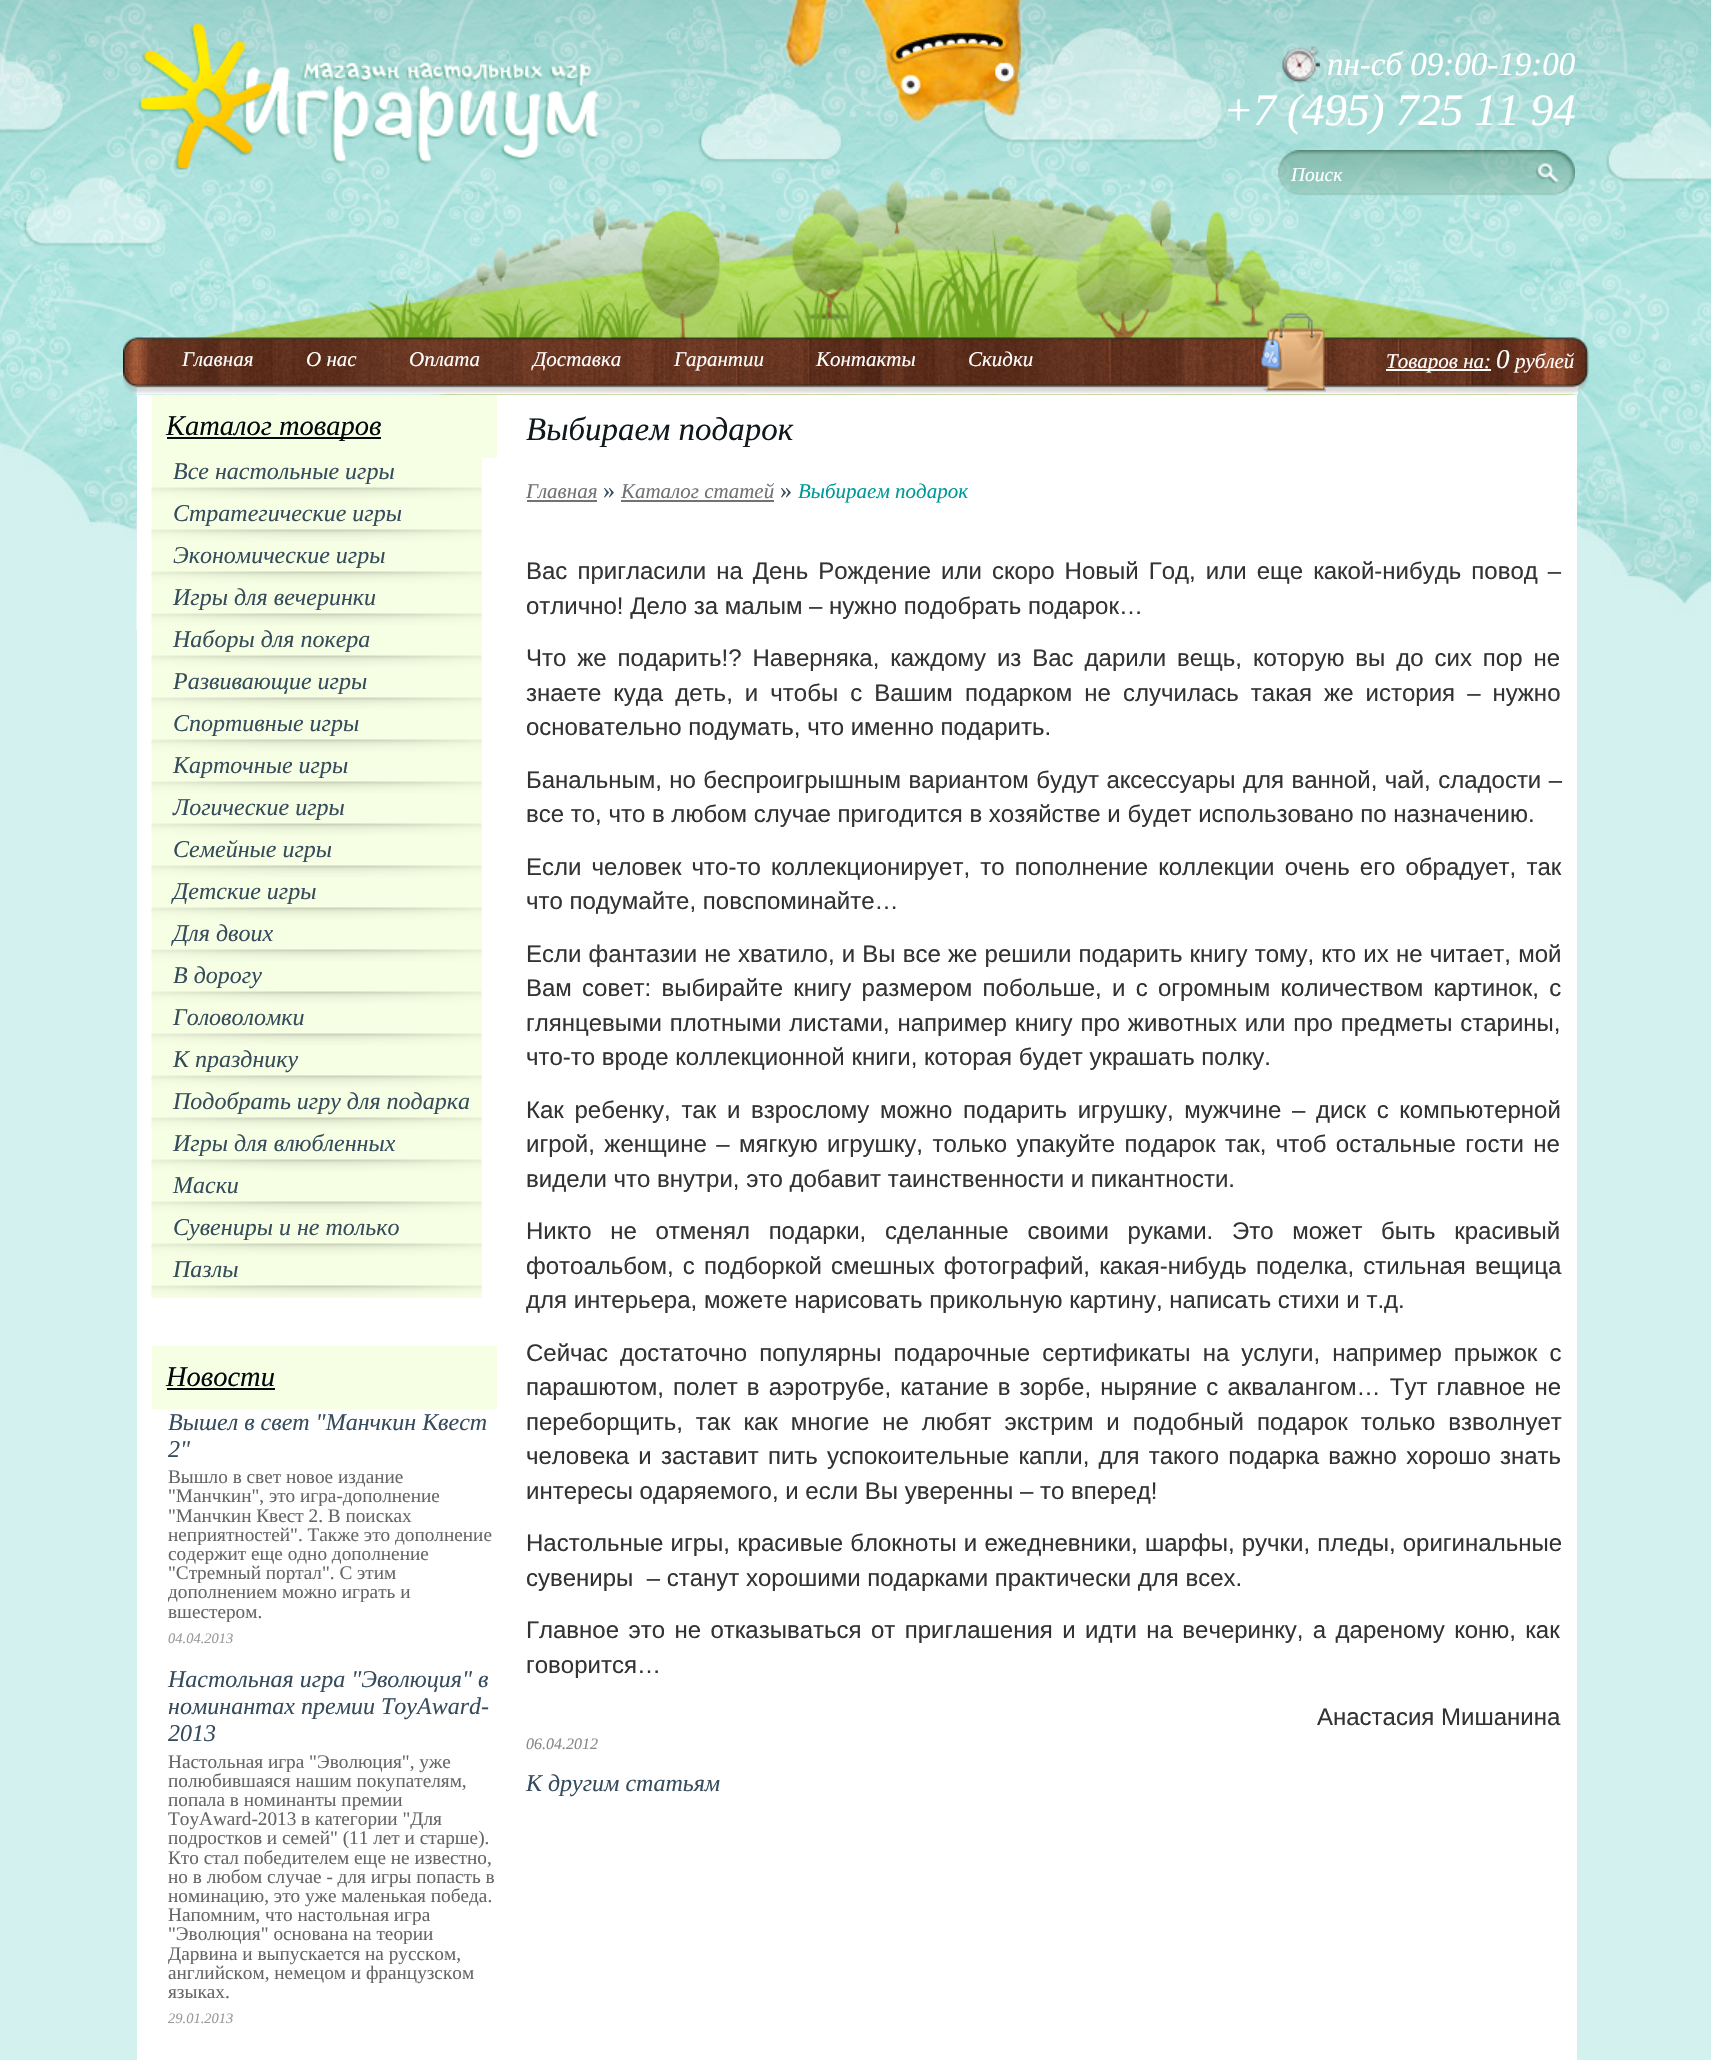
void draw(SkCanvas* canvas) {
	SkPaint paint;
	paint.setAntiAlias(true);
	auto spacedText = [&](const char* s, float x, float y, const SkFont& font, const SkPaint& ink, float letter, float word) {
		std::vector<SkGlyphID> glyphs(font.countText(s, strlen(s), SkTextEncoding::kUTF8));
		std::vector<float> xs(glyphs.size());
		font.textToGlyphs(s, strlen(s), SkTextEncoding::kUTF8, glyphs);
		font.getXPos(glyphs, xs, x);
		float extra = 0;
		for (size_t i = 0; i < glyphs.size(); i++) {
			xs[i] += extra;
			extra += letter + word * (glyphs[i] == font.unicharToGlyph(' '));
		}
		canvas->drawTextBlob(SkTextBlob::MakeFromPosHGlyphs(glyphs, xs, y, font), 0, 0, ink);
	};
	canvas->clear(0xffd2f1ef);
	canvas->drawImageRect(SkImages::DeferredFromEncodedData(SkData::MakeFromFileName("img1.png")), SkRect::MakeXYWH(0, 0, 1711, 672), SkSamplingOptions());
	canvas->drawImageRect(SkImages::DeferredFromEncodedData(SkData::MakeFromFileName("img2.png")), SkRect::MakeXYWH(138, 23, 461, 147), SkSamplingOptions());
	canvas->drawImageRect(SkImages::DeferredFromEncodedData(SkData::MakeFromFileName("img3.png")), SkRect::MakeXYWH(1282, 46, 38, 37), SkSamplingOptions());
	SkFont f1(fontMgr->matchFamilyStyle("Liberation Serif", SkFontStyle::Italic()), 33);
	f1.setSubpixel(true);
	paint.setColor(0xffffffff);
	canvas->drawString("пн-сб 09:00-19:00", 1327, 75, f1, paint);
	SkFont f2(fontMgr->matchFamilyStyle("Liberation Serif", SkFontStyle::Italic()), 45);
	f2.setSubpixel(true);
	canvas->drawString("+7 (495) 725 11 94", 1223, 125, f2, paint);
	canvas->drawImageRect(SkImages::DeferredFromEncodedData(SkData::MakeFromFileName("img4.png")), SkRect::MakeXYWH(1277, 150, 247, 46), SkSamplingOptions());
	SkFont f3(fontMgr->matchFamilyStyle("Liberation Serif", SkFontStyle::Italic()), 19.5);
	f3.setSubpixel(true);
	canvas->drawString("Поиск", 1291, 181, f3, paint);
	canvas->drawImageRect(SkImages::DeferredFromEncodedData(SkData::MakeFromFileName("img5.png")), SkRect::MakeXYWH(1524, 150, 51, 46), SkSamplingOptions());
	canvas->drawImageRect(SkImages::DeferredFromEncodedData(SkData::MakeFromFileName("img6.png")), SkRect::MakeXYWH(123, 337, 1466, 58), SkSamplingOptions());
	SkFont f4(fontMgr->matchFamilyStyle("Liberation Serif", SkFontStyle::Italic()), 21);
	f4.setSubpixel(true);
	canvas->drawString("Главная", 182, 366, f4, paint);
	canvas->drawString("О нас", 306, 366, f4, paint);
	canvas->drawString("Оплата", 409, 366, f4, paint);
	canvas->drawString("Доставка", 533, 366, f4, paint);
	canvas->drawString("Гарантии", 674, 366, f4, paint);
	canvas->drawString("Контакты", 816, 366, f4, paint);
	canvas->drawString("Скидки", 968, 366, f4, paint);
	canvas->drawImageRect(SkImages::DeferredFromEncodedData(SkData::MakeFromFileName("img7.png")), SkRect::MakeXYWH(1260, 313, 66, 79), SkSamplingOptions());
	canvas->drawRect(SkRect::MakeXYWH(1386, 369, 105, 2), paint);
	canvas->drawString("Товаров на:", 1386, 368, f4, paint);
	SkFont f5(fontMgr->matchFamilyStyle("Liberation Serif", SkFontStyle::Italic()), 27);
	f5.setSubpixel(true);
	canvas->drawString("0", 1496, 368, f5, paint);
	canvas->drawString("рублей", 1515, 368, f4, paint);
	canvas->drawImageRect(SkImages::DeferredFromEncodedData(SkData::MakeFromFileName("img8.png")), SkRect::MakeXYWH(136, 514, 1, 116), SkSamplingOptions());
	canvas->drawRect(SkRect::MakeXYWH(137, 395, 1440, 1665), paint);
	paint.setColor(0xfff6ffe3);
	canvas->drawRect(SkRect::MakeXYWH(152, 395, 345, 63), paint);
	paint.setColor(0xff01090c);
	canvas->drawRect(SkRect::MakeXYWH(167, 437, 214, 2), paint);
	SkFont f6(fontMgr->matchFamilyStyle("Liberation Serif", SkFontStyle::Italic()), 28.5);
	f6.setSubpixel(true);
	canvas->drawString("Каталог товаров", 166, 435, f6, paint);
	paint.setColor(0xfff6ffe3);
	canvas->drawRect(SkRect::MakeXYWH(152, 458, 330, 840), paint);
	canvas->drawImageRect(SkImages::DeferredFromEncodedData(SkData::MakeFromFileName("img9.png")), SkRect::MakeXYWH(151, 487, 331, 13), SkSamplingOptions());
	SkFont f7(fontMgr->matchFamilyStyle("Liberation Serif", SkFontStyle::Italic()), 24);
	f7.setSubpixel(true);
	paint.setColor(0xff364c5d);
	canvas->drawString("Все настольные игры", 173, 479, f7, paint);
	canvas->drawImageRect(SkImages::DeferredFromEncodedData(SkData::MakeFromFileName("img9.png")), SkRect::MakeXYWH(151, 529, 331, 13), SkSamplingOptions());
	canvas->drawString("Стратегические игры", 173, 521, f7, paint);
	canvas->drawImageRect(SkImages::DeferredFromEncodedData(SkData::MakeFromFileName("img9.png")), SkRect::MakeXYWH(151, 571, 331, 13), SkSamplingOptions());
	canvas->drawString("Экономические игры", 173, 563, f7, paint);
	canvas->drawImageRect(SkImages::DeferredFromEncodedData(SkData::MakeFromFileName("img9.png")), SkRect::MakeXYWH(151, 613, 331, 13), SkSamplingOptions());
	canvas->drawString("Игры для вечеринки", 173, 605, f7, paint);
	canvas->drawImageRect(SkImages::DeferredFromEncodedData(SkData::MakeFromFileName("img9.png")), SkRect::MakeXYWH(151, 655, 331, 13), SkSamplingOptions());
	canvas->drawString("Наборы для покера", 173, 647, f7, paint);
	canvas->drawImageRect(SkImages::DeferredFromEncodedData(SkData::MakeFromFileName("img9.png")), SkRect::MakeXYWH(151, 697, 331, 13), SkSamplingOptions());
	canvas->drawString("Развивающие игры", 173, 689, f7, paint);
	canvas->drawImageRect(SkImages::DeferredFromEncodedData(SkData::MakeFromFileName("img9.png")), SkRect::MakeXYWH(151, 739, 331, 13), SkSamplingOptions());
	canvas->drawString("Спортивные игры", 173, 731, f7, paint);
	canvas->drawImageRect(SkImages::DeferredFromEncodedData(SkData::MakeFromFileName("img9.png")), SkRect::MakeXYWH(151, 781, 331, 13), SkSamplingOptions());
	canvas->drawString("Карточные игры", 173, 773, f7, paint);
	canvas->drawImageRect(SkImages::DeferredFromEncodedData(SkData::MakeFromFileName("img9.png")), SkRect::MakeXYWH(151, 823, 331, 13), SkSamplingOptions());
	canvas->drawString("Логические игры", 173, 815, f7, paint);
	canvas->drawImageRect(SkImages::DeferredFromEncodedData(SkData::MakeFromFileName("img9.png")), SkRect::MakeXYWH(151, 865, 331, 13), SkSamplingOptions());
	canvas->drawString("Семейные игры", 173, 857, f7, paint);
	canvas->drawImageRect(SkImages::DeferredFromEncodedData(SkData::MakeFromFileName("img9.png")), SkRect::MakeXYWH(151, 907, 331, 13), SkSamplingOptions());
	canvas->drawString("Детские игры", 173, 899, f7, paint);
	canvas->drawImageRect(SkImages::DeferredFromEncodedData(SkData::MakeFromFileName("img9.png")), SkRect::MakeXYWH(151, 949, 331, 13), SkSamplingOptions());
	canvas->drawString("Для двоих", 173, 941, f7, paint);
	canvas->drawImageRect(SkImages::DeferredFromEncodedData(SkData::MakeFromFileName("img9.png")), SkRect::MakeXYWH(151, 991, 331, 13), SkSamplingOptions());
	canvas->drawString("В дорогу", 173, 983, f7, paint);
	canvas->drawImageRect(SkImages::DeferredFromEncodedData(SkData::MakeFromFileName("img9.png")), SkRect::MakeXYWH(151, 1033, 331, 13), SkSamplingOptions());
	canvas->drawString("Головоломки", 173, 1025, f7, paint);
	canvas->drawImageRect(SkImages::DeferredFromEncodedData(SkData::MakeFromFileName("img9.png")), SkRect::MakeXYWH(151, 1075, 331, 13), SkSamplingOptions());
	canvas->drawString("К празднику", 173, 1067, f7, paint);
	canvas->drawImageRect(SkImages::DeferredFromEncodedData(SkData::MakeFromFileName("img9.png")), SkRect::MakeXYWH(151, 1117, 331, 13), SkSamplingOptions());
	canvas->drawString("Подобрать игру для подарка", 173, 1109, f7, paint);
	canvas->drawImageRect(SkImages::DeferredFromEncodedData(SkData::MakeFromFileName("img9.png")), SkRect::MakeXYWH(151, 1159, 331, 13), SkSamplingOptions());
	canvas->drawString("Игры для влюбленных", 173, 1151, f7, paint);
	canvas->drawImageRect(SkImages::DeferredFromEncodedData(SkData::MakeFromFileName("img9.png")), SkRect::MakeXYWH(151, 1201, 331, 13), SkSamplingOptions());
	canvas->drawString("Маски", 173, 1193, f7, paint);
	canvas->drawImageRect(SkImages::DeferredFromEncodedData(SkData::MakeFromFileName("img9.png")), SkRect::MakeXYWH(151, 1243, 331, 13), SkSamplingOptions());
	canvas->drawString("Сувениры и не только", 173, 1235, f7, paint);
	canvas->drawImageRect(SkImages::DeferredFromEncodedData(SkData::MakeFromFileName("img9.png")), SkRect::MakeXYWH(151, 1285, 331, 13), SkSamplingOptions());
	canvas->drawString("Пазлы", 173, 1277, f7, paint);
	paint.setColor(0xfff6ffe3);
	canvas->drawRect(SkRect::MakeXYWH(152, 1346, 345, 63), paint);
	paint.setColor(0xff01090c);
	canvas->drawString("Новости", 166, 1386, f6, paint);
	canvas->drawRect(SkRect::MakeXYWH(167, 1388, 108, 2), paint);
	paint.setColor(0xff364c5d);
	canvas->drawString("Вышел в свет \"Манчкин Квест", 168, 1430, f7, paint);
	canvas->drawString("2\"", 168, 1457, f7, paint);
	SkFont f8(fontMgr->matchFamilyStyle("Liberation Serif", SkFontStyle::Normal()), 19.25);
	f8.setSubpixel(true);
	paint.setColor(0xff666666);
	canvas->drawString("Вышло в свет новое издание", 168, 1483, f8, paint);
	canvas->drawString("\"Манчкин\", это игра-дополнение", 168, 1502, f8, paint);
	canvas->drawString("\"Манчкин Квест 2. В поисках", 168, 1522, f8, paint);
	canvas->drawString("неприятностей\". Также это дополнение", 168, 1541, f8, paint);
	canvas->drawString("содержит еще одно дополнение", 168, 1560, f8, paint);
	canvas->drawString("\"Стремный портал\". С этим", 168, 1579, f8, paint);
	canvas->drawString("дополнением можно играть и", 168, 1598, f8, paint);
	canvas->drawString("вшестером.", 168, 1618, f8, paint);
	SkFont f9(fontMgr->matchFamilyStyle("Liberation Serif", SkFontStyle::Italic()), 14.5);
	f9.setSubpixel(true);
	paint.setColor(0xff999999);
	canvas->drawString("04.04.2013", 168, 1643, f9, paint);
	paint.setColor(0xff364c5d);
	canvas->drawString("Настольная игра \"Эволюция\" в", 168, 1687, f7, paint);
	canvas->drawString("номинантах премии ToyAward-", 168, 1714, f7, paint);
	canvas->drawString("2013", 168, 1741, f7, paint);
	paint.setColor(0xff666666);
	canvas->drawString("Настольная игра \"Эволюция\", уже", 168, 1768, f8, paint);
	canvas->drawString("полюбившаяся нашим покупателям,", 168, 1787, f8, paint);
	canvas->drawString("попала в номинанты премии", 168, 1806, f8, paint);
	canvas->drawString("ToyAward-2013 в категории \"Для", 168, 1825, f8, paint);
	canvas->drawString("подростков и семей\" (11 лет и старше).", 168, 1844, f8, paint);
	canvas->drawString("Кто стал победителем еще не известно,", 168, 1864, f8, paint);
	canvas->drawString("но в любом случае - для игры попасть в", 168, 1883, f8, paint);
	canvas->drawString("номинацию, это уже маленькая победа.", 168, 1902, f8, paint);
	canvas->drawString("Напомним, что настольная игра", 168, 1921, f8, paint);
	canvas->drawString("\"Эволюция\" основана на теории", 168, 1940, f8, paint);
	canvas->drawString("Дарвина и выпускается на русском,", 168, 1960, f8, paint);
	canvas->drawString("английском, немецом и французском", 168, 1979, f8, paint);
	canvas->drawString("языках.", 168, 1998, f8, paint);
	paint.setColor(0xff999999);
	canvas->drawString("29.01.2013", 168, 2023, f9, paint);
	paint.setColor(0xff11191c);
	canvas->drawString("Выбираем подарок", 526, 440, f1, paint);
	paint.setColor(0xff707375);
	canvas->drawString("Главная", 526, 498, f4, paint);
	canvas->drawRect(SkRect::MakeXYWH(527, 500, 70, 2), paint);
	SkFont f10(fontMgr->matchFamilyStyle("Liberation Serif", SkFontStyle::Normal()), 24);
	f10.setSubpixel(true);
	paint.setColor(0xff364c5d);
	canvas->drawString("»", 603, 498, f10, paint);
	paint.setColor(0xff707375);
	canvas->drawString("Каталог статей", 621, 498, f4, paint);
	canvas->drawRect(SkRect::MakeXYWH(621, 500, 153, 2), paint);
	paint.setColor(0xff364c5d);
	canvas->drawString("»", 780, 498, f10, paint);
	paint.setColor(0xff009999);
	canvas->drawString("Выбираем подарок", 798, 498, f4, paint);
	SkFont f11(fontMgr->matchFamilyStyle("Liberation Sans", SkFontStyle::Normal()), 24);
	f11.setSubpixel(true);
	paint.setColor(0xff333333);
	spacedText("Вас пригласили на День Рождение или скоро Новый Год, или еще какой-нибудь повод –", 526, 579, f11, paint, 0, 3.4);
	canvas->drawString("отлично! Дело за малым – нужно подобрать подарок…", 526, 614, f11, paint);
	spacedText("Что же подарить!? Наверняка, каждому из Вас дарили вещь, которую вы до сих пор не", 526, 666, f11, paint, 0, 4.25);
	spacedText("знаете куда деть, и чтобы с Вашим подарком не случилась такая же история – нужно", 526, 701, f11, paint, 0, 5.4);
	canvas->drawString("основательно подумать, что именно подарить.", 526, 735, f11, paint);
	spacedText("Банальным, но беспроигрышным вариантом будут аксессуары для ванной, чай, сладости –", 526, 788, f11, paint, 0, 0.75);
	canvas->drawString("все то, что в любом случае пригодится в хозяйстве и будет использовано по назначению.", 526, 822, f11, paint);
	spacedText("Если человек что-то коллекционирует, то пополнение коллекции очень его обрадует, так", 526, 875, f11, paint, 0, 3.5);
	canvas->drawString("что подумайте, повспоминайте…", 526, 909, f11, paint);
	spacedText("Если фантазии не хватило, и Вы все же решили подарить книгу тому, кто их не читает, мой", 526, 962, f11, paint, 0, 0.5);
	spacedText("Вам совет: выбирайте книгу размером побольше, и с огромным количеством картинок, с", 526, 996, f11, paint, 0, 3.6);
	spacedText("глянцевыми плотными листами, например книгу про животных или про предметы старины,", 526, 1031, f11, paint, 0, 1.1);
	canvas->drawString("что-то вроде коллекционной книги, которая будет украшать полку.", 526, 1065, f11, paint);
	spacedText("Как ребенку, так и взрослому можно подарить игрушку, мужчине – диск с компьютерной", 526, 1118, f11, paint, 0, 4);
	spacedText("игрой, женщине – мягкую игрушку, только упакуйте подарок так, чтоб остальные гости не", 526, 1152, f11, paint, 0, 2.75);
	canvas->drawString("видели что внутри, это добавит таинственности и пикантности.", 526, 1187, f11, paint);
	spacedText("Никто не отменял подарки, сделанные своими руками. Это может быть красивый", 526, 1239, f11, paint, 0, 12);
	spacedText("фотоальбом, с подборкой смешных фотографий, какая-нибудь поделка, стильная вещица", 526, 1274, f11, paint, 0, 2.5);
	canvas->drawString("для интерьера, можете нарисовать прикольную картину, написать стихи и т.д.", 526, 1308, f11, paint);
	spacedText("Сейчас достаточно популярны подарочные сертификаты на услуги, например прыжок с", 526, 1361, f11, paint, 0, 5.4);
	spacedText("парашютом, полет в аэротрубе, катание в зорбе, ныряние с аквалангом… Тут главное не", 526, 1395, f11, paint, 0, 2.5);
	spacedText("переборщить, так как многие не любят экстрим и подобный подарок только взволнует", 526, 1430, f11, paint, 0, 6.25);
	spacedText("человека и заставит пить успокоительные капли, для такого подарка важно хорошо знать", 526, 1464, f11, paint, 0, 2.5);
	canvas->drawString("интересы одаряемого, и если Вы уверенны – то вперед!", 526, 1499, f11, paint);
	spacedText("Настольные игры, красивые блокноты и ежедневники, шарфы, ручки, пледы, оригинальные", 526, 1551, f11, paint, 0, 0.5);
	canvas->drawString("сувениры  – станут хорошими подарками практически для всех.", 526, 1586, f11, paint);
	spacedText("Главное это не отказываться от приглашения и идти на вечеринку, а дареному коню, как", 526, 1638, f11, paint, 0, 2.75);
	canvas->drawString("говорится…", 526, 1673, f11, paint);
	canvas->drawString("Анастасия Мишанина", 1317, 1725, f11, paint);
	SkFont f12(fontMgr->matchFamilyStyle("Liberation Serif", SkFontStyle::Italic()), 16);
	f12.setSubpixel(true);
	paint.setColor(0xff888888);
	canvas->drawString("06.04.2012", 526, 1749, f12, paint);
	paint.setColor(0xff364c5d);
	canvas->drawString("К другим статьям", 526, 1791, f7, paint);
}
